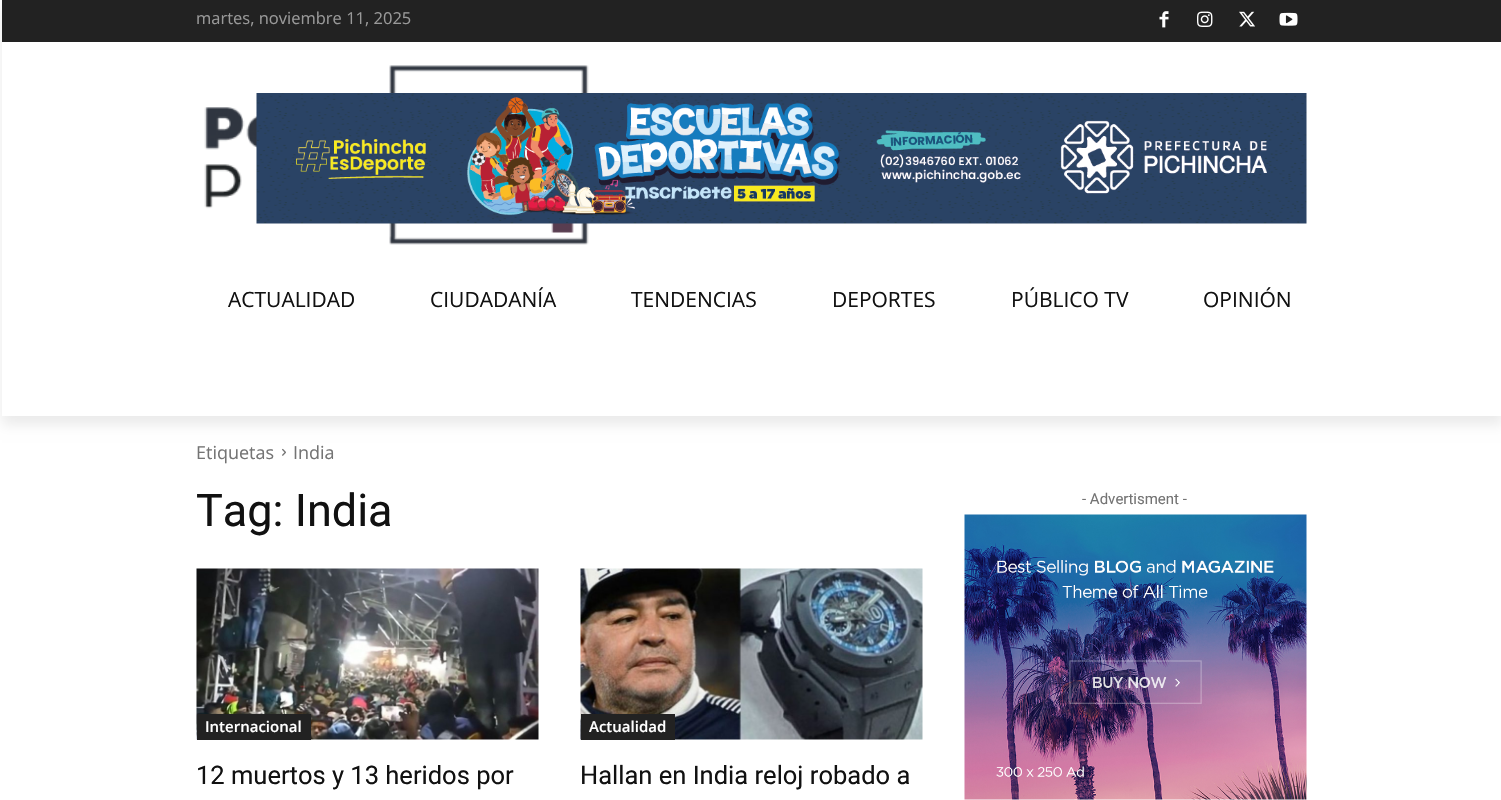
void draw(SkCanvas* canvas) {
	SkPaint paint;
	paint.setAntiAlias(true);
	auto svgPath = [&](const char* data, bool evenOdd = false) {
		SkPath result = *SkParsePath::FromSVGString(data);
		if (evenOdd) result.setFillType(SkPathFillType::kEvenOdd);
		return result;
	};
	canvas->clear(0xffffffff);
	paint.setColor(0xff222222);
	canvas->drawRect(SkRect::MakeXYWH(2, 0, 1499, 42), paint);
	canvas->drawImageRect(SkImages::DeferredFromEncodedData(SkData::MakeFromFileName("img1.png")), SkRect::MakeXYWH(1159, 11, 10, 17), SkSamplingOptions());
	canvas->drawImageRect(SkImages::DeferredFromEncodedData(SkData::MakeFromFileName("img2.png")), SkRect::MakeXYWH(1197, 11, 16, 16), SkSamplingOptions());
	canvas->drawImageRect(SkImages::DeferredFromEncodedData(SkData::MakeFromFileName("img3.png")), SkRect::MakeXYWH(1239, 11, 16, 16), SkSamplingOptions());
	canvas->drawImageRect(SkImages::DeferredFromEncodedData(SkData::MakeFromFileName("img4.png")), SkRect::MakeXYWH(1279, 12, 19, 14), SkSamplingOptions());
	canvas->drawImageRect(SkImages::DeferredFromEncodedData(SkData::MakeFromFileName("img5.png")), SkRect::MakeXYWH(204, 65, 385, 180), SkSamplingOptions());
	canvas->drawImageRect(SkImages::DeferredFromEncodedData(SkData::MakeFromFileName("img6.png")), SkRect::MakeXYWH(256, 93, 1051, 131), SkSamplingOptions());
	canvas->save();
	canvas->clipPath(svgPath("M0 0H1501V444H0ZM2 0H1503V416H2Z", true), true);
	paint.setColor(0x14000000);
	paint.setMaskFilter(SkMaskFilter::MakeBlur(kNormal_SkBlurStyle, 6));
	canvas->drawRect(SkRect::MakeXYWH(2, 9, 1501, 416), paint);
	paint.setMaskFilter(nullptr);
	canvas->restore();
	SkFont f1(fontMgr->matchFamilyStyle("Open Sans", SkFontStyle::Normal()), 16.5);
	f1.setSubpixel(true);
	paint.setColor(0xff999999);
	canvas->drawString("martes, noviembre 11, 2025", 196, 24, f1, paint);
	SkFont f2(fontMgr->matchFamilyStyle("Open Sans", SkFontStyle::Normal()), 21);
	f2.setSubpixel(true);
	paint.setColor(0xff111111);
	canvas->drawString("ACTUALIDAD", 228, 307, f2, paint);
	canvas->drawString("CIUDADANÍA", 430, 307, f2, paint);
	canvas->drawString("TENDENCIAS", 631, 307, f2, paint);
	canvas->drawString("DEPORTES", 832, 307, f2, paint);
	canvas->drawString("PÚBLICO TV", 1011, 307, f2, paint);
	canvas->drawString("OPINIÓN", 1203, 307, f2, paint);
	SkFont f3(fontMgr->matchFamilyStyle("Open Sans", SkFontStyle::Normal()), 18);
	f3.setSubpixel(true);
	paint.setColor(0xff747474);
	canvas->drawString("Etiquetas", 196, 459, f3, paint);
	canvas->drawImageRect(SkImages::DeferredFromEncodedData(SkData::MakeFromFileName("img7.png")), SkRect::MakeXYWH(282, 448, 4, 8), SkSamplingOptions());
	canvas->drawString("India", 293, 459, f3, paint);
	SkFont f4(fontMgr->matchFamilyStyle("Roboto", SkFontStyle::Normal()), 45);
	f4.setSubpixel(true);
	paint.setColor(0xff111111);
	canvas->drawString("Tag: India", 196, 526, f4, paint);
	canvas->drawImageRect(SkImages::DeferredFromEncodedData(SkData::MakeFromFileName("img8.png")), SkRect::MakeXYWH(196, 568, 343, 172), SkSamplingOptions());
	paint.setColor(0xff222222);
	canvas->drawRect(SkRect::MakeXYWH(197, 714, 114, 26), paint);
	SkFont f5(fontMgr->matchFamilyStyle("Open Sans", SkFontStyle(600, SkFontStyle::kNormal_Width, SkFontStyle::kUpright_Slant)), 15);
	f5.setSubpixel(true);
	paint.setColor(0xffffffff);
	canvas->drawString("Internacional", 205, 732, f5, paint);
	SkFont f6(fontMgr->matchFamilyStyle("Roboto", SkFontStyle::Normal()), 25.5);
	f6.setSubpixel(true);
	paint.setColor(0xff111111);
	canvas->drawString("12 muertos y 13 heridos por", 196, 784, f6, paint);
	canvas->drawImageRect(SkImages::DeferredFromEncodedData(SkData::MakeFromFileName("img9.png")), SkRect::MakeXYWH(580, 568, 343, 172), SkSamplingOptions());
	paint.setColor(0xff222222);
	canvas->drawRect(SkRect::MakeXYWH(581, 714, 94, 26), paint);
	paint.setColor(0xffffffff);
	canvas->drawString("Actualidad", 589, 732, f5, paint);
	paint.setColor(0xff111111);
	canvas->drawString("Hallan en India reloj robado a", 580, 784, f6, paint);
	SkFont f7(fontMgr->matchFamilyStyle("Roboto", SkFontStyle::Normal()), 15);
	f7.setSubpixel(true);
	paint.setColor(0xff747474);
	canvas->drawString("- Advertisment -", 1082, 504, f7, paint);
	canvas->drawImageRect(SkImages::DeferredFromEncodedData(SkData::MakeFromFileName("img10.png")), SkRect::MakeXYWH(964, 514, 343, 286), SkSamplingOptions());
}
